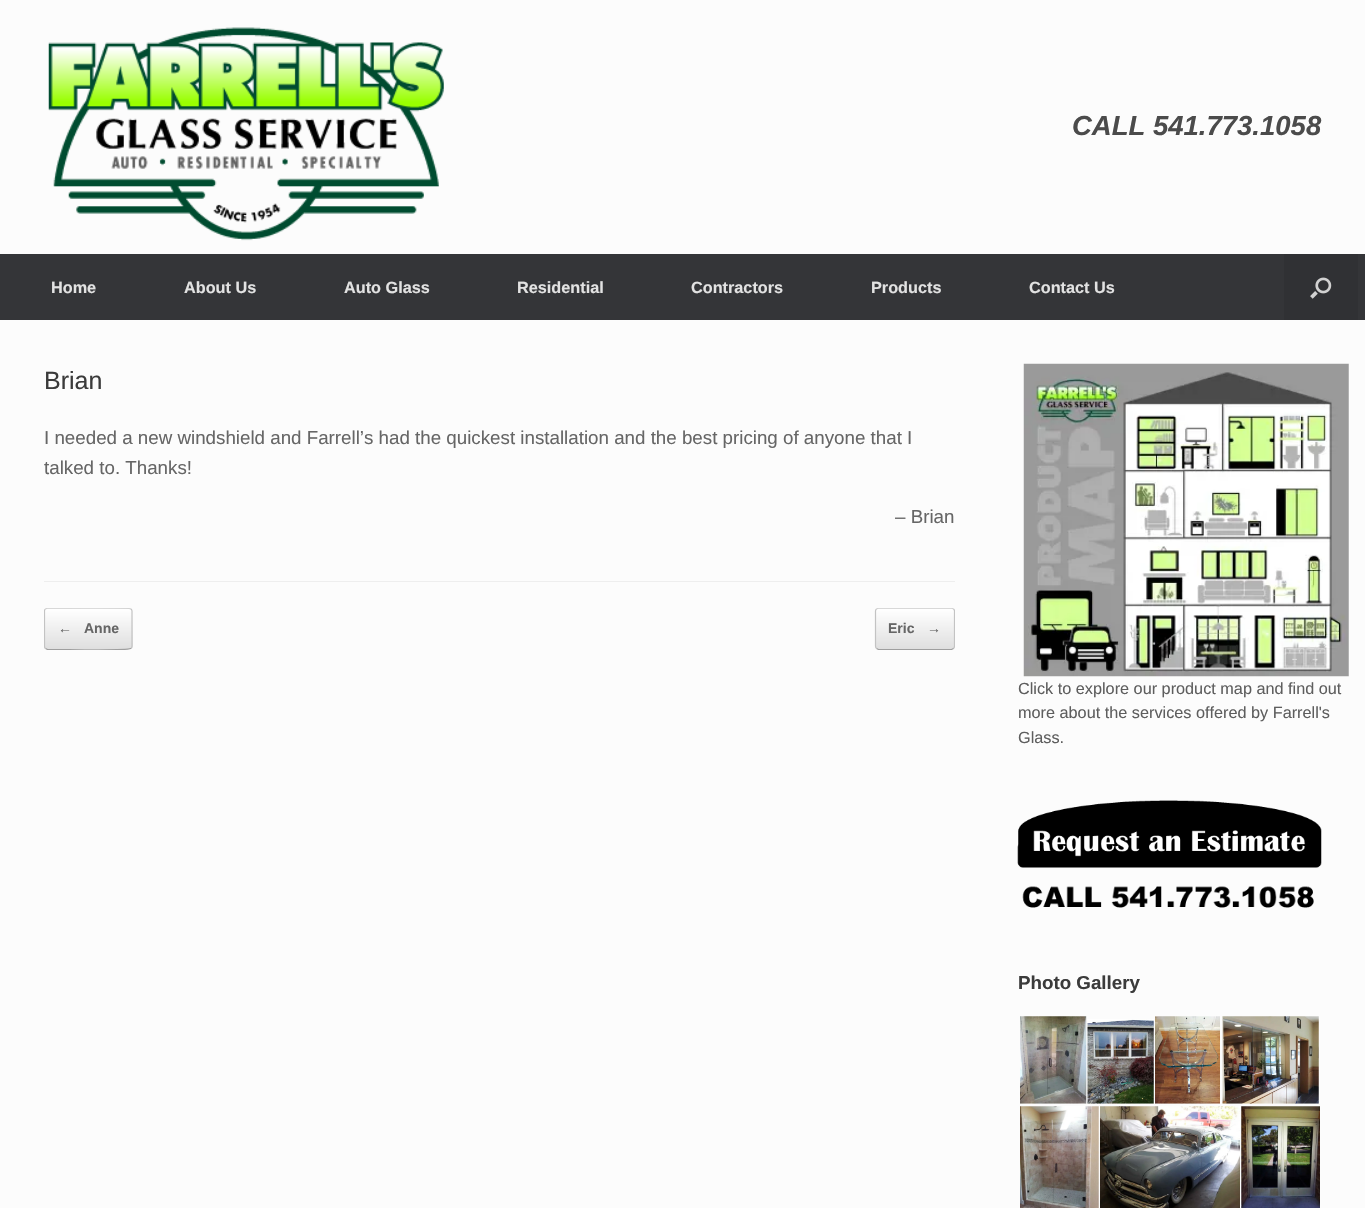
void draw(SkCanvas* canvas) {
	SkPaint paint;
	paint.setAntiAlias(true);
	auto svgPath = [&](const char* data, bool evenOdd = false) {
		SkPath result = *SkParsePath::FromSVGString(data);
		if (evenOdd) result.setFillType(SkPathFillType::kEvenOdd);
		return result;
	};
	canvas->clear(0xfffcfcfc);
	canvas->drawImageRect(SkImages::DeferredFromEncodedData(SkData::MakeFromFileName("img1.png")), SkRect::MakeXYWH(48, 27, 396, 214), SkSamplingOptions());
	SkFont f1(fontMgr->matchFamilyStyle("Liberation Sans", SkFontStyle::BoldItalic()), 27.5);
	f1.setSubpixel(true);
	paint.setColor(0xff4b4b4b);
	canvas->drawString("CALL 541.773.1058", 1072, 135, f1, paint);
	paint.setColor(0xff343538);
	canvas->drawRect(SkRect::MakeXYWH(0, 254, 1365, 66), paint);
	SkFont f2(fontMgr->matchFamilyStyle("Liberation Sans", SkFontStyle::Bold()), 16.25);
	f2.setSubpixel(true);
	paint.setColor(0xffe2e2e2);
	canvas->drawString("Home", 51, 293, f2, paint);
	canvas->drawString("About Us", 184, 293, f2, paint);
	canvas->drawString("Auto Glass", 344, 293, f2, paint);
	canvas->drawString("Residential", 517, 293, f2, paint);
	canvas->drawString("Contractors", 691, 293, f2, paint);
	canvas->drawString("Products", 871, 293, f2, paint);
	canvas->drawString("Contact Us", 1029, 293, f2, paint);
	paint.setColor(0xff303134);
	canvas->drawRect(SkRect::MakeXYWH(1284, 254, 74, 66), paint);
	canvas->drawImageRect(SkImages::DeferredFromEncodedData(SkData::MakeFromFileName("img2.png")), SkRect::MakeXYWH(1310, 277, 22, 22), SkSamplingOptions());
	paint.setColor(0xffeeeeee);
	canvas->drawRect(SkRect::MakeXYWH(44, 581, 911, 1), paint);
	SkFont f3(fontMgr->matchFamilyStyle("Liberation Sans", SkFontStyle::Normal()), 25);
	f3.setSubpixel(true);
	paint.setColor(0xff3b3b3b);
	canvas->drawString("Brian", 44, 389, f3, paint);
	SkFont f4(fontMgr->matchFamilyStyle("Liberation Sans", SkFontStyle::Normal()), 18.75);
	f4.setSubpixel(true);
	paint.setColor(0xff666666);
	canvas->drawString("I needed a new windshield and Farrell’s had the quickest installation and the best pricing of anyone that I", 44, 444, f4, paint);
	canvas->drawString("talked to. Thanks!", 44, 474, f4, paint);
	canvas->drawString("– Brian", 895, 523, f4, paint);
	canvas->save();
	canvas->clipPath(svgPath("M48 608H129C131 608 133 610 133 612V646C133 648 131 650 129 650H48C46 650 44 648 44 646V612C44 610 46 608 48 608Z"), true);
	{
		const SkColor colors[] = {0xffdfdfdf, 0xffffffff};
		const float stops[] = {0, 1};
		const SkPoint ends[] = {{45, 609}, {45, 569}};
		paint.setShader(SkGradientShader::MakeLinear(ends, colors, stops, 2, SkTileMode::kClamp));
		paint.setAlpha(255);
	}
	canvas->drawRect(SkRect::MakeXYWH(44, 608, 89, 1), paint);
	{
		const SkColor colors[] = {0xffdfdfdf, 0xffffffff};
		const float stops[] = {0, 1};
		const SkPoint ends[] = {{45, 649}, {45, 609}};
		paint.setShader(SkGradientShader::MakeLinear(ends, colors, stops, 2, SkTileMode::kClamp));
		paint.setAlpha(255);
	}
	canvas->drawRect(SkRect::MakeXYWH(44, 609, 89, 40), paint);
	{
		const SkColor colors[] = {0xffdfdfdf, 0xffffffff};
		const float stops[] = {0, 1};
		const SkPoint ends[] = {{45, 689}, {45, 649}};
		paint.setShader(SkGradientShader::MakeLinear(ends, colors, stops, 2, SkTileMode::kClamp));
		paint.setAlpha(255);
	}
	canvas->drawRect(SkRect::MakeXYWH(44, 649, 89, 1), paint);
	canvas->restore();
	canvas->save();
	canvas->clipRect(SkRect::MakeXYWH(44, 608, 911, 42));
	paint.setStroke(true);
	paint.setStrokeWidth(1.2);
	paint.setShader(nullptr);
	paint.setColor(0xffd2d2d2);
	canvas->drawPath(svgPath("M45.5 609L47.5 608H61C68.5 608 128.5 607 130.5 609H131"), paint);
	canvas->restore();
	paint.setColor(0xffc3c3c3);
	canvas->drawPath(svgPath("M131 609C131.5 609.5 132 610.5 132 611V646C132 647 131.5 648 131 648.5"), paint);
	canvas->save();
	canvas->clipRect(SkRect::MakeXYWH(44, 608, 911, 42));
	paint.setColor(0xff9f9f9f);
	canvas->drawPath(svgPath("M131 648.5H130.5C128.5 650.5 68.5 649.5 61 649.5H47.5L45.5 648.5"), paint);
	paint.setColor(0xffc3c3c3);
	canvas->drawPath(svgPath("M45.5 648.5C44.5 648 44.5 647 44.5 646V611C44.5 610.5 44.5 609.5 45.5 609"), paint);
	canvas->restore();
	SkFont f5(fontMgr->matchFamilyStyle("Liberation Sans", SkFontStyle::Bold()), 14);
	f5.setSubpixel(true);
	paint.setStroke(false);
	paint.setColor(0xff666666);
	canvas->drawString("←", 58, 633, f5, paint);
	canvas->drawString("Anne", 84, 633, f5, paint);
	canvas->save();
	canvas->clipPath(svgPath("M879 608H951C953 608 955 610 955 612V646C955 648 953 650 951 650H879C877 650 875 648 875 646V612C875 610 877 608 879 608Z"), true);
	{
		const SkColor colors[] = {0xffdfdfdf, 0xffffffff};
		const float stops[] = {0, 1};
		const SkPoint ends[] = {{876, 609}, {876, 569}};
		paint.setShader(SkGradientShader::MakeLinear(ends, colors, stops, 2, SkTileMode::kClamp));
		paint.setAlpha(255);
	}
	canvas->drawRect(SkRect::MakeXYWH(875, 608, 80, 1), paint);
	{
		const SkColor colors[] = {0xffdfdfdf, 0xffffffff};
		const float stops[] = {0, 1};
		const SkPoint ends[] = {{876, 649}, {876, 609}};
		paint.setShader(SkGradientShader::MakeLinear(ends, colors, stops, 2, SkTileMode::kClamp));
		paint.setAlpha(255);
	}
	canvas->drawRect(SkRect::MakeXYWH(875, 609, 80, 40), paint);
	canvas->restore();
	canvas->save();
	canvas->clipRect(SkRect::MakeXYWH(44, 608, 911, 42));
	paint.setStroke(true);
	paint.setShader(nullptr);
	paint.setColor(0xffd2d2d2);
	canvas->drawPath(svgPath("M876.5 609L878.5 608H951.5L953.5 609"), paint);
	paint.setColor(0xffc3c3c3);
	canvas->drawPath(svgPath("M953.5 609C954 609.5 954.5 610.5 954.5 611V646C954.5 647 954 648 953.5 648.5"), paint);
	paint.setColor(0xff9f9f9f);
	canvas->drawPath(svgPath("M953.5 648.5L951.5 649.5H878.5L876.5 648.5"), paint);
	canvas->restore();
	paint.setColor(0xffc3c3c3);
	canvas->drawPath(svgPath("M876.5 648.5C876 648 875.5 647 875.5 646V611C875.5 610.5 876 609.5 876.5 609"), paint);
	paint.setStroke(false);
	paint.setColor(0xff666666);
	canvas->drawString("Eric", 888, 633, f5, paint);
	canvas->drawString("→", 927, 633, f5, paint);
	canvas->drawImageRect(SkImages::DeferredFromEncodedData(SkData::MakeFromFileName("img3.png")), SkRect::MakeXYWH(1023, 363, 326, 314), SkSamplingOptions());
	SkFont f6(fontMgr->matchFamilyStyle("Liberation Sans", SkFontStyle::Normal()), 16.25);
	f6.setSubpixel(true);
	paint.setColor(0xff5e5e5e);
	canvas->drawString("Click to explore our product map and find out", 1018, 694, f6, paint);
	canvas->drawString("more about the services offered by Farrell's", 1018, 718, f6, paint);
	canvas->drawString("Glass.", 1018, 743, f6, paint);
	canvas->drawImageRect(SkImages::DeferredFromEncodedData(SkData::MakeFromFileName("img4.png")), SkRect::MakeXYWH(1017, 800, 305, 68), SkSamplingOptions());
	canvas->drawImageRect(SkImages::DeferredFromEncodedData(SkData::MakeFromFileName("img5.png")), SkRect::MakeXYWH(1022, 886, 292, 22), SkSamplingOptions());
	SkFont f7(fontMgr->matchFamilyStyle("Liberation Sans", SkFontStyle::Bold()), 18.75);
	f7.setSubpixel(true);
	paint.setColor(0xff3b3b3b);
	canvas->drawString("Photo Gallery", 1018, 989, f7, paint);
	canvas->drawImageRect(SkImages::DeferredFromEncodedData(SkData::MakeFromFileName("img6.png")), SkRect::MakeXYWH(1020, 1016, 67, 88), SkSamplingOptions());
	canvas->drawImageRect(SkImages::DeferredFromEncodedData(SkData::MakeFromFileName("img7.png")), SkRect::MakeXYWH(1087, 1019, 67, 85), SkSamplingOptions());
	canvas->drawImageRect(SkImages::DeferredFromEncodedData(SkData::MakeFromFileName("img8.png")), SkRect::MakeXYWH(1155, 1016, 65, 88), SkSamplingOptions());
	canvas->drawImageRect(SkImages::DeferredFromEncodedData(SkData::MakeFromFileName("img9.png")), SkRect::MakeXYWH(1222, 1016, 97, 88), SkSamplingOptions());
	canvas->drawImageRect(SkImages::DeferredFromEncodedData(SkData::MakeFromFileName("img10.png")), SkRect::MakeXYWH(1020, 1106, 79, 102), SkSamplingOptions());
	canvas->drawImageRect(SkImages::DeferredFromEncodedData(SkData::MakeFromFileName("img11.png")), SkRect::MakeXYWH(1100, 1106, 140, 102), SkSamplingOptions());
	canvas->drawImageRect(SkImages::DeferredFromEncodedData(SkData::MakeFromFileName("img12.png")), SkRect::MakeXYWH(1241, 1106, 79, 102), SkSamplingOptions());
}
